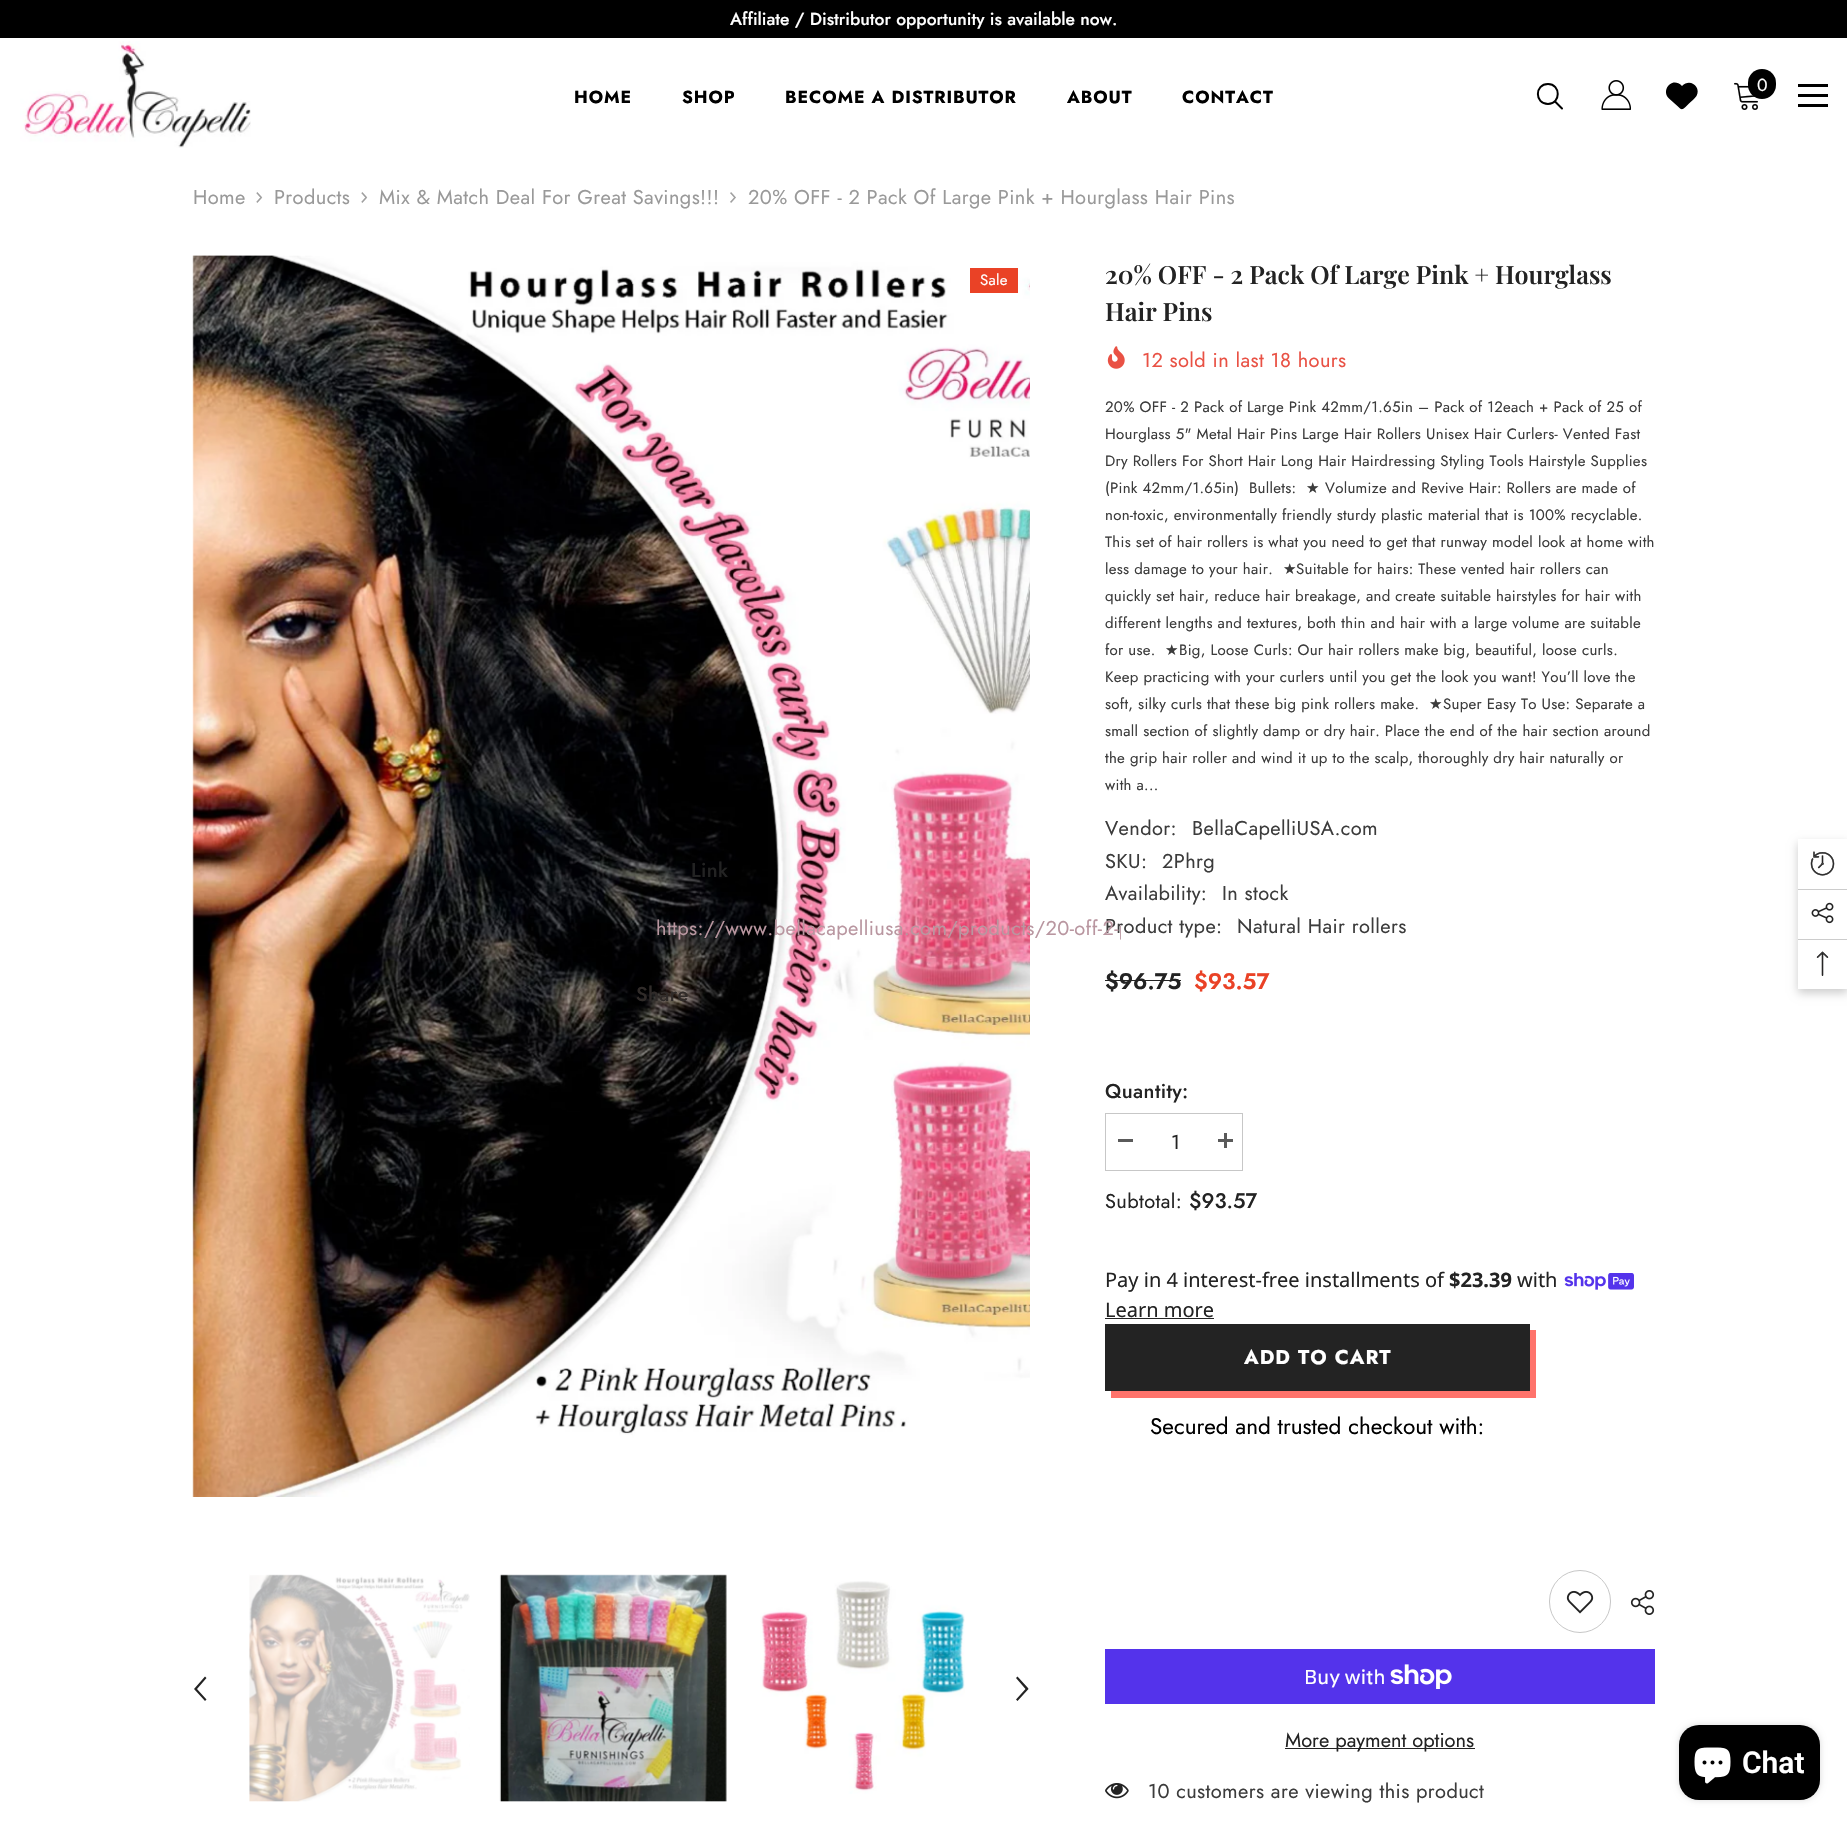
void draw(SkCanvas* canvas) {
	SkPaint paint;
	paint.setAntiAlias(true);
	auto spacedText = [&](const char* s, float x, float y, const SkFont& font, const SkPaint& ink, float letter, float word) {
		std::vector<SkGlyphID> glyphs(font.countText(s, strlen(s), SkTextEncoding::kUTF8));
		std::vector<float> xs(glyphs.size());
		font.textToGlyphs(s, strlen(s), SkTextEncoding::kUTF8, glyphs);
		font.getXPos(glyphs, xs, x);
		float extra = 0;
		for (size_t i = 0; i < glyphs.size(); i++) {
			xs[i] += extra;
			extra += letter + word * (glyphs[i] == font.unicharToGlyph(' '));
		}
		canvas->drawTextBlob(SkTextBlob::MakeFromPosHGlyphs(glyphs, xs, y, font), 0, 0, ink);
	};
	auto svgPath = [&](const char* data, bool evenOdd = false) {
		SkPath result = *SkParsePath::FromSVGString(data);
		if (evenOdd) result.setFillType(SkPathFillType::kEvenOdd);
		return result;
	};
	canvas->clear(0xffffffff);
	paint.setColor(0xff000000);
	canvas->drawRect(SkRect::MakeXYWH(0, 0, 1847, 38), paint);
	SkFont f1(fontMgr->matchFamilyStyle("Jost", SkFontStyle(500, SkFontStyle::kNormal_Width, SkFontStyle::kUpright_Slant)), 17.5);
	f1.setSubpixel(true);
	paint.setColor(0xffffffff);
	canvas->drawString("Affiliate / Distributor opportunity is available now.", 730, 25, f1, paint);
	canvas->drawImageRect(SkImages::DeferredFromEncodedData(SkData::MakeFromFileName("img1.png")), SkRect::MakeXYWH(20, 41, 231, 107), SkSamplingOptions());
	paint.setStroke(true);
	paint.setStrokeWidth(2);
	paint.setColor(0xff000000);
	canvas->drawPath(svgPath("M1548 84C1534.5 84 1534.5 104 1548 104C1561 104 1561 84 1548 84Z"), paint);
	paint.setStrokeCap(SkPaint::kRound_Cap);
	canvas->drawPath(svgPath("M1555 101.5L1562 108.5"), paint);
	canvas->drawImageRect(SkImages::DeferredFromEncodedData(SkData::MakeFromFileName("img2.png")), SkRect::MakeXYWH(1601, 80, 30, 30), SkSamplingOptions());
	paint.setStroke(false);
	canvas->drawPath(svgPath("M1669 98.5L1678.5 107C1681.5 110 1682 110 1685.5 107L1689 103.5C1691.5 101 1694.5 99 1696.5 96C1701.5 87 1690 77.5 1682 86C1672 76 1660.5 90.5 1669 98.5Z"), paint);
	canvas->drawImageRect(SkImages::DeferredFromEncodedData(SkData::MakeFromFileName("img3.png")), SkRect::MakeXYWH(1734, 82, 24, 28), SkSamplingOptions());
	canvas->drawRoundRect(SkRect::MakeXYWH(1748, 69, 28, 30), 14, 14, paint);
	SkFont f2(fontMgr->matchFamilyStyle("Jost", SkFontStyle::Normal()), 17.5);
	f2.setSubpixel(true);
	paint.setColor(0xffffffff);
	canvas->drawString("0", 1757, 91, f2, paint);
	paint.setColor(0xff000000);
	canvas->drawRect(SkRect::MakeXYWH(1798, 94, 30, 3), paint);
	canvas->drawRect(SkRect::MakeXYWH(1798, 84, 30, 3), paint);
	canvas->drawRect(SkRect::MakeXYWH(1798, 104, 30, 3), paint);
	SkFont f3(fontMgr->matchFamilyStyle("Jost", SkFontStyle::Bold()), 17.5);
	f3.setSubpixel(true);
	spacedText("HOME", 574, 103, f3, paint, 0.9, 0);
	spacedText("SHOP", 682, 103, f3, paint, 0.9, 0);
	spacedText("BECOME A DISTRIBUTOR", 785, 103, f3, paint, 0.9, 0);
	spacedText("ABOUT", 1067, 103, f3, paint, 0.9, 0);
	spacedText("CONTACT", 1182, 103, f3, paint, 0.9, 0);
	SkFont f4(fontMgr->matchFamilyStyle("Jost", SkFontStyle::Normal()), 20);
	f4.setSubpixel(true);
	paint.setColor(0xff999999);
	spacedText("Home", 193, 204, f4, paint, 0.4, 0);
	canvas->drawImageRect(SkImages::DeferredFromEncodedData(SkData::MakeFromFileName("img4.png")), SkRect::MakeXYWH(256, 192, 7, 11), SkSamplingOptions());
	spacedText("Products", 274, 204, f4, paint, 0.4, 0);
	canvas->drawImageRect(SkImages::DeferredFromEncodedData(SkData::MakeFromFileName("img4.png")), SkRect::MakeXYWH(361, 192, 7, 11), SkSamplingOptions());
	spacedText("Mix & Match Deal For Great Savings!!!", 379, 204, f4, paint, 0.4, 0);
	canvas->drawImageRect(SkImages::DeferredFromEncodedData(SkData::MakeFromFileName("img5.png")), SkRect::MakeXYWH(730, 192, 6, 11), SkSamplingOptions());
	spacedText("20% OFF - 2 Pack Of Large Pink + Hourglass Hair Pins", 748, 204, f4, paint, 0.4, 0);
	SkFont f5(fontMgr->matchFamilyStyle("Playfair Display", SkFontStyle(600, SkFontStyle::kNormal_Width, SkFontStyle::kUpright_Slant)), 25);
	f5.setSubpixel(true);
	paint.setColor(0xff232323);
	canvas->drawString("20% OFF - 2 Pack Of Large Pink + Hourglass", 1105, 284, f5, paint);
	canvas->drawString("Hair Pins", 1105, 321, f5, paint);
	canvas->drawImageRect(SkImages::DeferredFromEncodedData(SkData::MakeFromFileName("img6.png")), SkRect::MakeXYWH(1107, 346, 18, 23), SkSamplingOptions());
	paint.setColor(0xffe95144);
	spacedText("12 sold in last 18 hours", 1142, 367, f4, paint, 0.4, 0);
	SkFont f6(fontMgr->matchFamilyStyle("Jost", SkFontStyle::Normal()), 15);
	f6.setSubpixel(true);
	paint.setColor(0xff3c3c3c);
	spacedText("20% OFF - 2 Pack of Large Pink 42mm/1.65in – Pack of 12each + Pack of 25 of", 1105, 412, f6, paint, 0.3, 0);
	spacedText("Hourglass 5\" Metal Hair Pins Large Hair Rollers Unisex Hair Curlers- Vented Fast", 1105, 439, f6, paint, 0.3, 0);
	spacedText("Dry Rollers For Short Hair Long Hair Hairdressing Styling Tools Hairstyle Supplies", 1105, 466, f6, paint, 0.3, 0);
	spacedText("(Pink 42mm/1.65in)  Bullets:", 1105, 493, f6, paint, 0.3, 0);
	SkFont f7(fontMgr->matchFamilyStyle("DejaVu Sans", SkFontStyle::Normal()), 15);
	f7.setSubpixel(true);
	spacedText("★", 1306, 493, f7, paint, 0.3, 0);
	spacedText("Volumize and Revive Hair: Rollers are made of", 1325, 493, f6, paint, 0.3, 0);
	spacedText("non-toxic, environmentally friendly sturdy plastic material that is 100% recyclable.", 1105, 520, f6, paint, 0.3, 0);
	spacedText("This set of hair rollers is what you need to get that runway model look at home with", 1105, 547, f6, paint, 0.3, 0);
	spacedText("less damage to your hair.", 1105, 574, f6, paint, 0.3, 0);
	spacedText("★", 1283, 574, f7, paint, 0.3, 0);
	spacedText("Suitable for hairs: These vented hair rollers can", 1296, 574, f6, paint, 0.3, 0);
	spacedText("quickly set hair, reduce hair breakage, and create suitable hairstyles for hair with", 1105, 601, f6, paint, 0.3, 0);
	spacedText("different lengths and textures, both thin and hair with a large volume are suitable", 1105, 628, f6, paint, 0.3, 0);
	spacedText("for use.", 1105, 655, f6, paint, 0.3, 0);
	spacedText("★", 1165, 655, f7, paint, 0.3, 0);
	spacedText("Big, Loose Curls: Our hair rollers make big, beautiful, loose curls.", 1179, 655, f6, paint, 0.3, 0);
	spacedText("Keep practicing with your curlers until you get the look you want! You’ll love the", 1105, 682, f6, paint, 0.3, 0);
	spacedText("soft, silky curls that these big pink rollers make.", 1105, 709, f6, paint, 0.3, 0);
	spacedText("★", 1429, 709, f7, paint, 0.3, 0);
	spacedText("Super Easy To Use: Separate a", 1443, 709, f6, paint, 0.3, 0);
	spacedText("small section of slightly damp or dry hair. Place the end of the hair section around", 1105, 736, f6, paint, 0.3, 0);
	spacedText("the grip hair roller and wind it up to the scalp, thoroughly dry hair naturally or", 1105, 763, f6, paint, 0.3, 0);
	spacedText("with a...", 1105, 790, f6, paint, 0.3, 0);
	spacedText("Vendor:", 1105, 835, f4, paint, 0.4, 0);
	spacedText("BellaCapelliUSA.com", 1192, 835, f4, paint, 0.4, 0);
	spacedText("SKU:", 1105, 868, f4, paint, 0.4, 0);
	spacedText("2Phrg", 1162, 868, f4, paint, 0.4, 0);
	spacedText("Availability:", 1105, 900, f4, paint, 0.4, 0);
	spacedText("In stock", 1222, 900, f4, paint, 0.4, 0);
	spacedText("Product type:", 1105, 933, f4, paint, 0.4, 0);
	spacedText("Natural Hair rollers", 1237, 933, f4, paint, 0.4, 0);
	canvas->drawImageRect(SkImages::DeferredFromEncodedData(SkData::MakeFromFileName("img12.png")), SkRect::MakeXYWH(192, 255, 838, 1242), SkSamplingOptions());
	SkFont f8(fontMgr->matchFamilyStyle("Jost", SkFontStyle(500, SkFontStyle::kNormal_Width, SkFontStyle::kUpright_Slant)), 20);
	f8.setSubpixel(true);
	paint.setColor(0xff232323);
	spacedText("Link", 691, 877, f8, paint, 0.4, 0);
	canvas->save();
	canvas->clipRect(SkRect::MakeXYWH(656, 913, 465, 32));
	paint.setColor(0xffb996a0);
	spacedText("https://www.bellacapelliusa.com/products/20-off-2-p", 656, 935, f4, paint, 0.4, 0);
	canvas->restore();
	paint.setColor(0xff302b29);
	spacedText("Share", 636, 1001, f8, paint, 0.4, 0);
	canvas->drawImageRect(SkImages::DeferredFromEncodedData(SkData::MakeFromFileName("img7.png")), SkRect::MakeXYWH(1630, 1590, 25, 25), SkSamplingOptions());
	paint.setColor(0xffff736b);
	canvas->drawPath(svgPath("M1111 1391V1398H1536V1330H1530V1391Z"), paint);
	paint.setColor(0xff232323);
	canvas->drawRect(SkRect::MakeXYWH(1105, 1324, 425, 67), paint);
	SkFont f9(fontMgr->matchFamilyStyle("Jost", SkFontStyle::Bold()), 20);
	f9.setSubpixel(true);
	paint.setColor(0xffffffff);
	spacedText("ADD TO CART", 1244, 1364, f9, paint, 1, 0);
	SkFont f10(fontMgr->matchFamilyStyle("Jost", SkFontStyle::Normal()), 22.5);
	f10.setSubpixel(true);
	paint.setColor(0xff000000);
	canvas->drawString("Secured and trusted checkout with:", 1150, 1434, f10, paint);
	paint.setStroke(true);
	paint.setStrokeWidth(1);
	paint.setStrokeCap(SkPaint::kButt_Cap);
	paint.setColor(0xffc7c7c7);
	canvas->drawRoundRect(SkRect::MakeXYWH(1549.5, 1570.5, 61, 62), 30.5, 30.5, paint);
	canvas->drawImageRect(SkImages::DeferredFromEncodedData(SkData::MakeFromFileName("img8.png")), SkRect::MakeXYWH(1566, 1590, 28, 24), SkSamplingOptions());
	paint.setStroke(false);
	paint.setColor(0xff5433eb);
	canvas->drawRect(SkRect::MakeXYWH(1105, 1649, 550, 55), paint);
	SkFont f11(fontMgr->matchFamilyStyle("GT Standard", SkFontStyle::Normal()), 20);
	f11.setSubpixel(true);
	paint.setColor(0xffffffff);
	canvas->drawString("Buy with", 1304, 1684, f11, paint);
	canvas->drawImageRect(SkImages::DeferredFromEncodedData(SkData::MakeFromFileName("img9.png")), SkRect::MakeXYWH(1390, 1664, 62, 25), SkSamplingOptions());
	paint.setColor(0xff232323);
	canvas->drawRect(SkRect::MakeXYWH(1285, 1748, 190, 1), paint);
	canvas->drawString("More payment options", 1285, 1747, f4, paint);
	SkFont f12(fontMgr->matchFamilyStyle("Noto Sans", SkFontStyle::Normal()), 20);
	f12.setSubpixel(true);
	canvas->drawString("Pay in 4 interest-free installments of", 1105, 1287, f12, paint);
	SkFont f13(fontMgr->matchFamilyStyle("Noto Sans", SkFontStyle::Bold()), 20);
	f13.setSubpixel(true);
	canvas->drawString("$23.39", 1449, 1287, f13, paint);
	canvas->drawString("with", 1517, 1287, f12, paint);
	canvas->drawImageRect(SkImages::DeferredFromEncodedData(SkData::MakeFromFileName("img10.png")), SkRect::MakeXYWH(1564, 1273, 70, 17), SkSamplingOptions());
	canvas->drawString("Learn more", 1105, 1317, f12, paint);
	canvas->drawRect(SkRect::MakeXYWH(1105, 1318, 109, 1), paint);
	SkFont f14(fontMgr->matchFamilyStyle("Jost", SkFontStyle(600, SkFontStyle::kNormal_Width, SkFontStyle::kUpright_Slant)), 22.5);
	f14.setSubpixel(true);
	canvas->drawString("$96.75", 1105, 989, f14, paint);
	canvas->drawRect(SkRect::MakeXYWH(1105, 980, 76, 1), paint);
	paint.setColor(0xffea4226);
	canvas->drawString("$93.57", 1194, 989, f14, paint);
	paint.setColor(0xff232323);
	spacedText("Quantity:", 1105, 1098, f8, paint, 0.4, 0);
	paint.setStroke(true);
	paint.setColor(0xffc7c7c7);
	canvas->drawRect(SkRect::MakeXYWH(1105.5, 1113.5, 137, 57), paint);
	paint.setStroke(false);
	paint.setColor(0xff5a5a5a);
	canvas->drawRect(SkRect::MakeXYWH(1118, 1139, 15, 3), paint);
	paint.setColor(0xff232323);
	spacedText("1", 1171, 1149, f4, paint, 0.4, 0);
	paint.setColor(0xff5a5a5a);
	canvas->drawRect(SkRect::MakeXYWH(1218, 1139, 15, 3), paint);
	canvas->drawRect(SkRect::MakeXYWH(1224, 1133, 3, 15), paint);
	paint.setColor(0xff232323);
	spacedText("Subtotal:", 1105, 1208, f4, paint, 0.4, 0);
	SkFont f15(fontMgr->matchFamilyStyle("Jost", SkFontStyle(500, SkFontStyle::kNormal_Width, SkFontStyle::kUpright_Slant)), 21);
	f15.setSubpixel(true);
	canvas->drawString("$93.57", 1189, 1208, f15, paint);
	canvas->drawImageRect(SkImages::DeferredFromEncodedData(SkData::MakeFromFileName("img11.png")), SkRect::MakeXYWH(1105, 1783, 24, 16), SkSamplingOptions());
	paint.setColor(0xff3c3c3c);
	spacedText("10 customers are viewing this product", 1148, 1798, f4, paint, 0.4, 0);
	paint.setColor(0xffea4226);
	canvas->drawRect(SkRect::MakeXYWH(970, 268, 48, 25), paint);
	paint.setColor(0xffffffff);
	spacedText("Sale", 980, 285, f6, paint, 0.3, 0);
	paint.setColor(0xff232323);
	canvas->drawPath(svgPath("M205 1701L206.5 1699.5L197 1689L206.5 1678L205 1676.5L194 1689L194.5 1689.5Z"), paint);
	canvas->drawImageRect(SkImages::DeferredFromEncodedData(SkData::MakeFromFileName("img13.png")), SkRect::MakeXYWH(249, 1574, 221, 228), SkSamplingOptions());
	canvas->drawImageRect(SkImages::DeferredFromEncodedData(SkData::MakeFromFileName("img14.png")), SkRect::MakeXYWH(499, 1574, 228, 228), SkSamplingOptions());
	canvas->drawImageRect(SkImages::DeferredFromEncodedData(SkData::MakeFromFileName("img15.png")), SkRect::MakeXYWH(760, 1581, 205, 213), SkSamplingOptions());
	canvas->drawPath(svgPath("M1017.5 1676.5L1016 1678L1025.5 1689L1016 1699.5L1017.5 1701L1028.5 1689L1028 1688Z"), paint);
	paint.setColor(0x33000000);
	paint.setMaskFilter(SkMaskFilter::MakeBlur(kNormal_SkBlurStyle, 4.5));
	canvas->drawRect(SkRect::MakeXYWH(1798, 843, 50, 150), paint);
	paint.setMaskFilter(nullptr);
	paint.setColor(0xffffffff);
	canvas->drawRect(SkRect::MakeXYWH(1798, 839, 49, 150), paint);
	canvas->drawImageRect(SkImages::DeferredFromEncodedData(SkData::MakeFromFileName("img16.png")), SkRect::MakeXYWH(1810, 851, 25, 25), SkSamplingOptions());
	paint.setColor(0xffcccccc);
	canvas->drawRect(SkRect::MakeXYWH(1798, 889, 49, 1), paint);
	canvas->drawImageRect(SkImages::DeferredFromEncodedData(SkData::MakeFromFileName("img17.png")), SkRect::MakeXYWH(1811, 902, 23, 22), SkSamplingOptions());
	canvas->drawRect(SkRect::MakeXYWH(1798, 939, 49, 1), paint);
	canvas->drawImageRect(SkImages::DeferredFromEncodedData(SkData::MakeFromFileName("img18.png")), SkRect::MakeXYWH(1816, 951, 13, 25), SkSamplingOptions());
	paint.setColor(0x26000000);
	paint.setMaskFilter(SkMaskFilter::MakeBlur(kNormal_SkBlurStyle, 3));
	canvas->drawRoundRect(SkRect::MakeXYWH(1679, 1725, 141, 75), 20, 20, paint);
	paint.setMaskFilter(nullptr);
	paint.setColor(0xff000000);
	canvas->drawRoundRect(SkRect::MakeXYWH(1679, 1725, 141, 75), 20, 20, paint);
	canvas->drawImageRect(SkImages::DeferredFromEncodedData(SkData::MakeFromFileName("img19.png")), SkRect::MakeXYWH(1694, 1747, 37, 37), SkSamplingOptions());
	SkFont f16(fontMgr->matchFamilyStyle("Roboto", SkFontStyle(600, SkFontStyle::kNormal_Width, SkFontStyle::kUpright_Slant)), 30);
	f16.setSubpixel(true);
	paint.setColor(0xffffffff);
	canvas->drawString("Chat", 1742, 1773, f16, paint);
}
